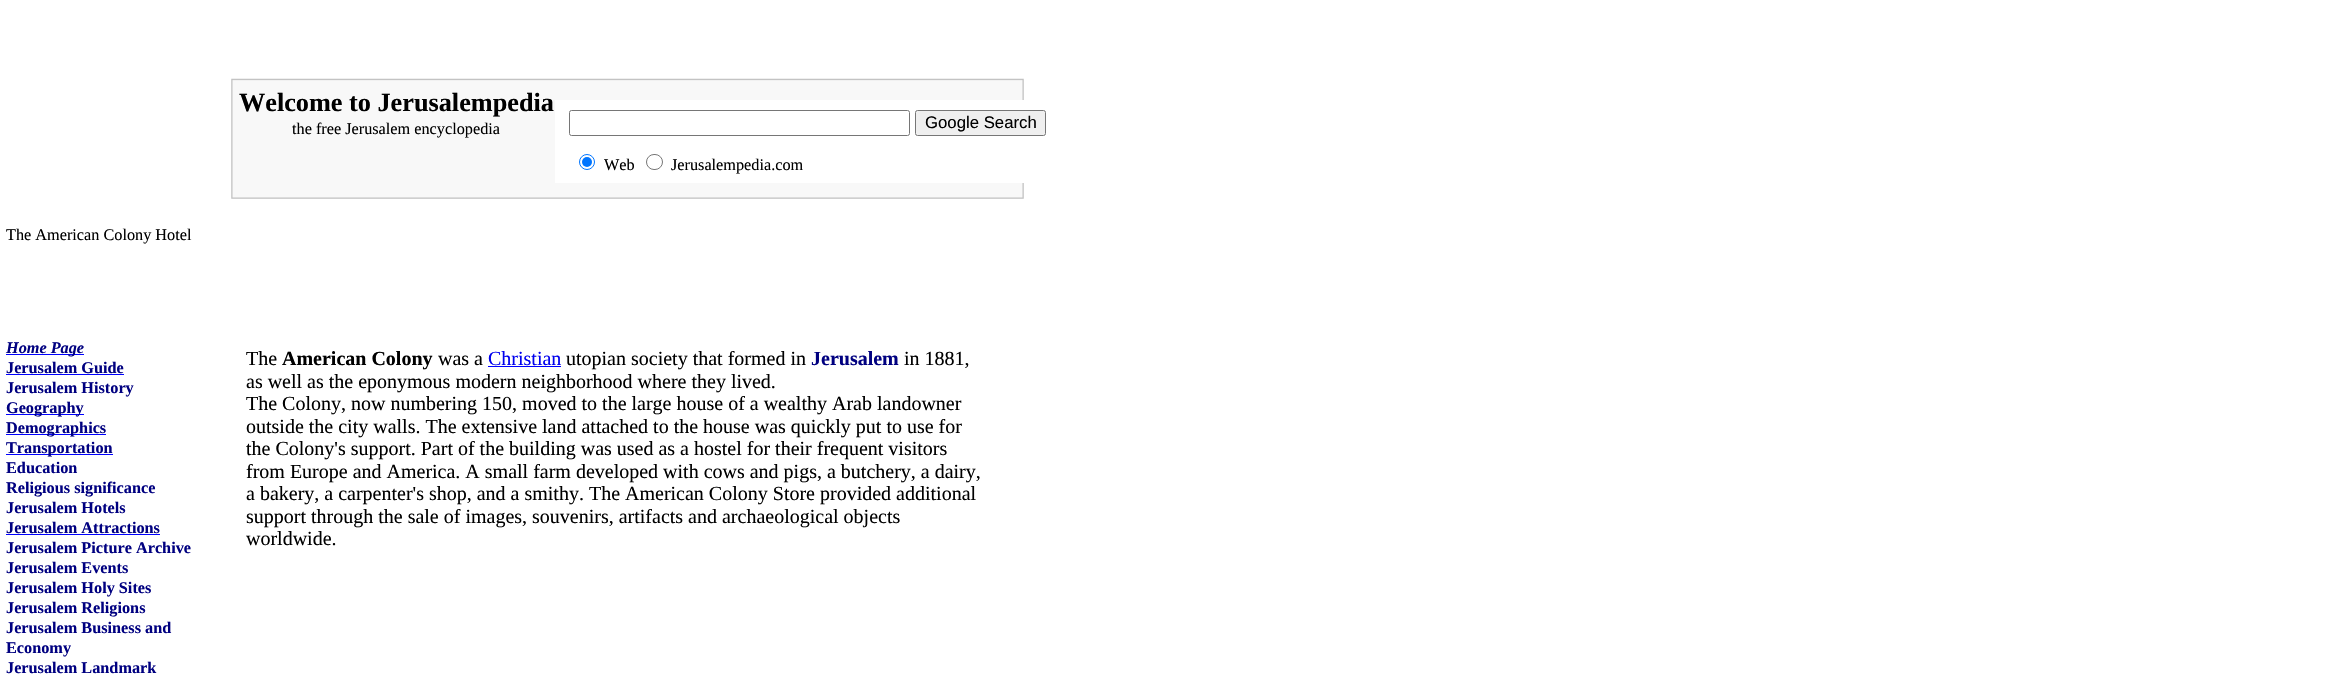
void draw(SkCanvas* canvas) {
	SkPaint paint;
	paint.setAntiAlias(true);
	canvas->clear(0xffffffff);
	canvas->drawImageRect(SkImages::DeferredFromEncodedData(SkData::MakeFromFileName("img1.png")), SkRect::MakeXYWH(231, 78, 793, 121), SkSamplingOptions());
	SkFont f1(fontMgr->matchFamilyStyle("Liberation Serif", SkFontStyle::Bold()), 26.25);
	f1.setSubpixel(true);
	paint.setColor(0xff000000);
	canvas->drawString("Welcome to Jerusalempedia", 239, 111, f1, paint);
	SkFont f2(fontMgr->matchFamilyStyle("Liberation Serif", SkFontStyle::Normal()), 16.25);
	f2.setSubpixel(true);
	canvas->drawString("the free Jerusalem encyclopedia", 292, 134, f2, paint);
	paint.setColor(0xffffffff);
	canvas->drawRect(SkRect::MakeXYWH(555, 100, 469, 83), paint);
	paint.setStroke(true);
	paint.setStrokeWidth(1);
	paint.setColor(0xff767676);
	canvas->drawRoundRect(SkRect::MakeXYWH(569.5, 110.5, 340, 25), 2, 2, paint);
	paint.setStroke(false);
	paint.setColor(0xffefefef);
	canvas->drawRoundRect(SkRect::MakeXYWH(915.5, 110.5, 130, 25), 2, 2, paint);
	paint.setStroke(true);
	paint.setColor(0xff767676);
	canvas->drawRoundRect(SkRect::MakeXYWH(915.5, 110.5, 130, 25), 2, 2, paint);
	SkFont f3(fontMgr->matchFamilyStyle("Liberation Sans", SkFontStyle::Normal()), 16.75);
	f3.setSubpixel(true);
	paint.setStroke(false);
	paint.setColor(0xff000000);
	canvas->drawString("Google Search", 925, 128, f3, paint);
	paint.setStroke(true);
	paint.setColor(0xff0075ff);
	canvas->drawCircle(587, 162, 7.5, paint);
	paint.setStroke(false);
	canvas->drawCircle(587, 162, 5, paint);
	paint.setColor(0xff000000);
	canvas->drawString("Web", 604, 170, f2, paint);
	paint.setStroke(true);
	paint.setColor(0xff767676);
	canvas->drawRoundRect(SkRect::MakeXYWH(646.5, 154.5, 16, 15), 7.5, 7.5, paint);
	paint.setStroke(false);
	paint.setColor(0xff000000);
	canvas->drawString("Jerusalempedia.com", 671, 170, f2, paint);
	canvas->drawString("The American Colony Hotel", 6, 240, f2, paint);
	paint.setColor(0xff0000ff);
	canvas->drawRect(SkRect::MakeXYWH(6, 354, 78, 1), paint);
	SkFont f4(fontMgr->matchFamilyStyle("Liberation Serif", SkFontStyle::BoldItalic()), 16.25);
	f4.setSubpixel(true);
	paint.setColor(0xff000080);
	canvas->drawString("Home Page", 6, 353, f4, paint);
	SkFont f5(fontMgr->matchFamilyStyle("Liberation Serif", SkFontStyle::Bold()), 16.25);
	f5.setSubpixel(true);
	canvas->drawString("Jerusalem Guide", 6, 373, f5, paint);
	paint.setColor(0xff0000ff);
	canvas->drawRect(SkRect::MakeXYWH(6, 374, 118, 1), paint);
	paint.setColor(0xff000080);
	canvas->drawString("Jerusalem History", 6, 393, f5, paint);
	paint.setColor(0xff0000ff);
	canvas->drawRect(SkRect::MakeXYWH(6, 414, 78, 1), paint);
	paint.setColor(0xff000080);
	canvas->drawString("Geography", 6, 413, f5, paint);
	paint.setColor(0xff0000ff);
	canvas->drawRect(SkRect::MakeXYWH(6, 434, 100, 1), paint);
	paint.setColor(0xff000080);
	canvas->drawString("Demographics", 6, 433, f5, paint);
	paint.setColor(0xff0000ff);
	canvas->drawRect(SkRect::MakeXYWH(6, 454, 107, 1), paint);
	paint.setColor(0xff000080);
	canvas->drawString("Transportation", 6, 453, f5, paint);
	canvas->drawString("Education", 6, 473, f5, paint);
	canvas->drawString("Religious significance", 6, 493, f5, paint);
	canvas->drawString("Jerusalem Hotels", 6, 513, f5, paint);
	canvas->drawString("Jerusalem Attractions", 6, 533, f5, paint);
	paint.setColor(0xff0000ff);
	canvas->drawRect(SkRect::MakeXYWH(6, 534, 154, 1), paint);
	paint.setColor(0xff000080);
	canvas->drawString("Jerusalem Picture Archive", 6, 553, f5, paint);
	canvas->drawString("Jerusalem Events", 6, 573, f5, paint);
	canvas->drawString("Jerusalem Holy Sites", 6, 593, f5, paint);
	canvas->drawString("Jerusalem Religions", 6, 613, f5, paint);
	canvas->drawString("Jerusalem Business and", 6, 633, f5, paint);
	canvas->drawString("Economy", 6, 653, f5, paint);
	canvas->drawString("Jerusalem Landmark", 6, 673, f5, paint);
	SkFont f6(fontMgr->matchFamilyStyle("Liberation Serif", SkFontStyle::Normal()), 20);
	f6.setSubpixel(true);
	paint.setColor(0xff000000);
	canvas->drawString("The", 246, 365, f6, paint);
	SkFont f7(fontMgr->matchFamilyStyle("Liberation Serif", SkFontStyle::Bold()), 20);
	f7.setSubpixel(true);
	canvas->drawString("American Colony", 282, 365, f7, paint);
	canvas->drawString("was a", 438, 365, f6, paint);
	paint.setColor(0xff0000ee);
	canvas->drawString("Christian", 488, 365, f6, paint);
	paint.setColor(0xff0000ff);
	canvas->drawRect(SkRect::MakeXYWH(488, 366, 73, 1), paint);
	paint.setColor(0xff000000);
	canvas->drawString("utopian society that formed in", 566, 365, f6, paint);
	paint.setColor(0xff000080);
	canvas->drawString("Jerusalem", 811, 365, f7, paint);
	paint.setColor(0xff000000);
	canvas->drawString("in 1881,", 904, 365, f6, paint);
	canvas->drawString("as well as the eponymous modern neighborhood where they lived.", 246, 388, f6, paint);
	canvas->drawString("The Colony, now numbering 150, moved to the large house of a wealthy Arab landowner", 246, 410, f6, paint);
	canvas->drawString("outside the city walls. The extensive land attached to the house was quickly put to use for", 246, 433, f6, paint);
	canvas->drawString("the Colony's support. Part of the building was used as a hostel for their frequent visitors", 246, 455, f6, paint);
	canvas->drawString("from Europe and America. A small farm developed with cows and pigs, a butchery, a dairy,", 246, 478, f6, paint);
	canvas->drawString("a bakery, a carpenter's shop, and a smithy. The American Colony Store provided additional", 246, 500, f6, paint);
	canvas->drawString("support through the sale of images, souvenirs, artifacts and archaeological objects", 246, 523, f6, paint);
	canvas->drawString("worldwide.", 246, 545, f6, paint);
}
